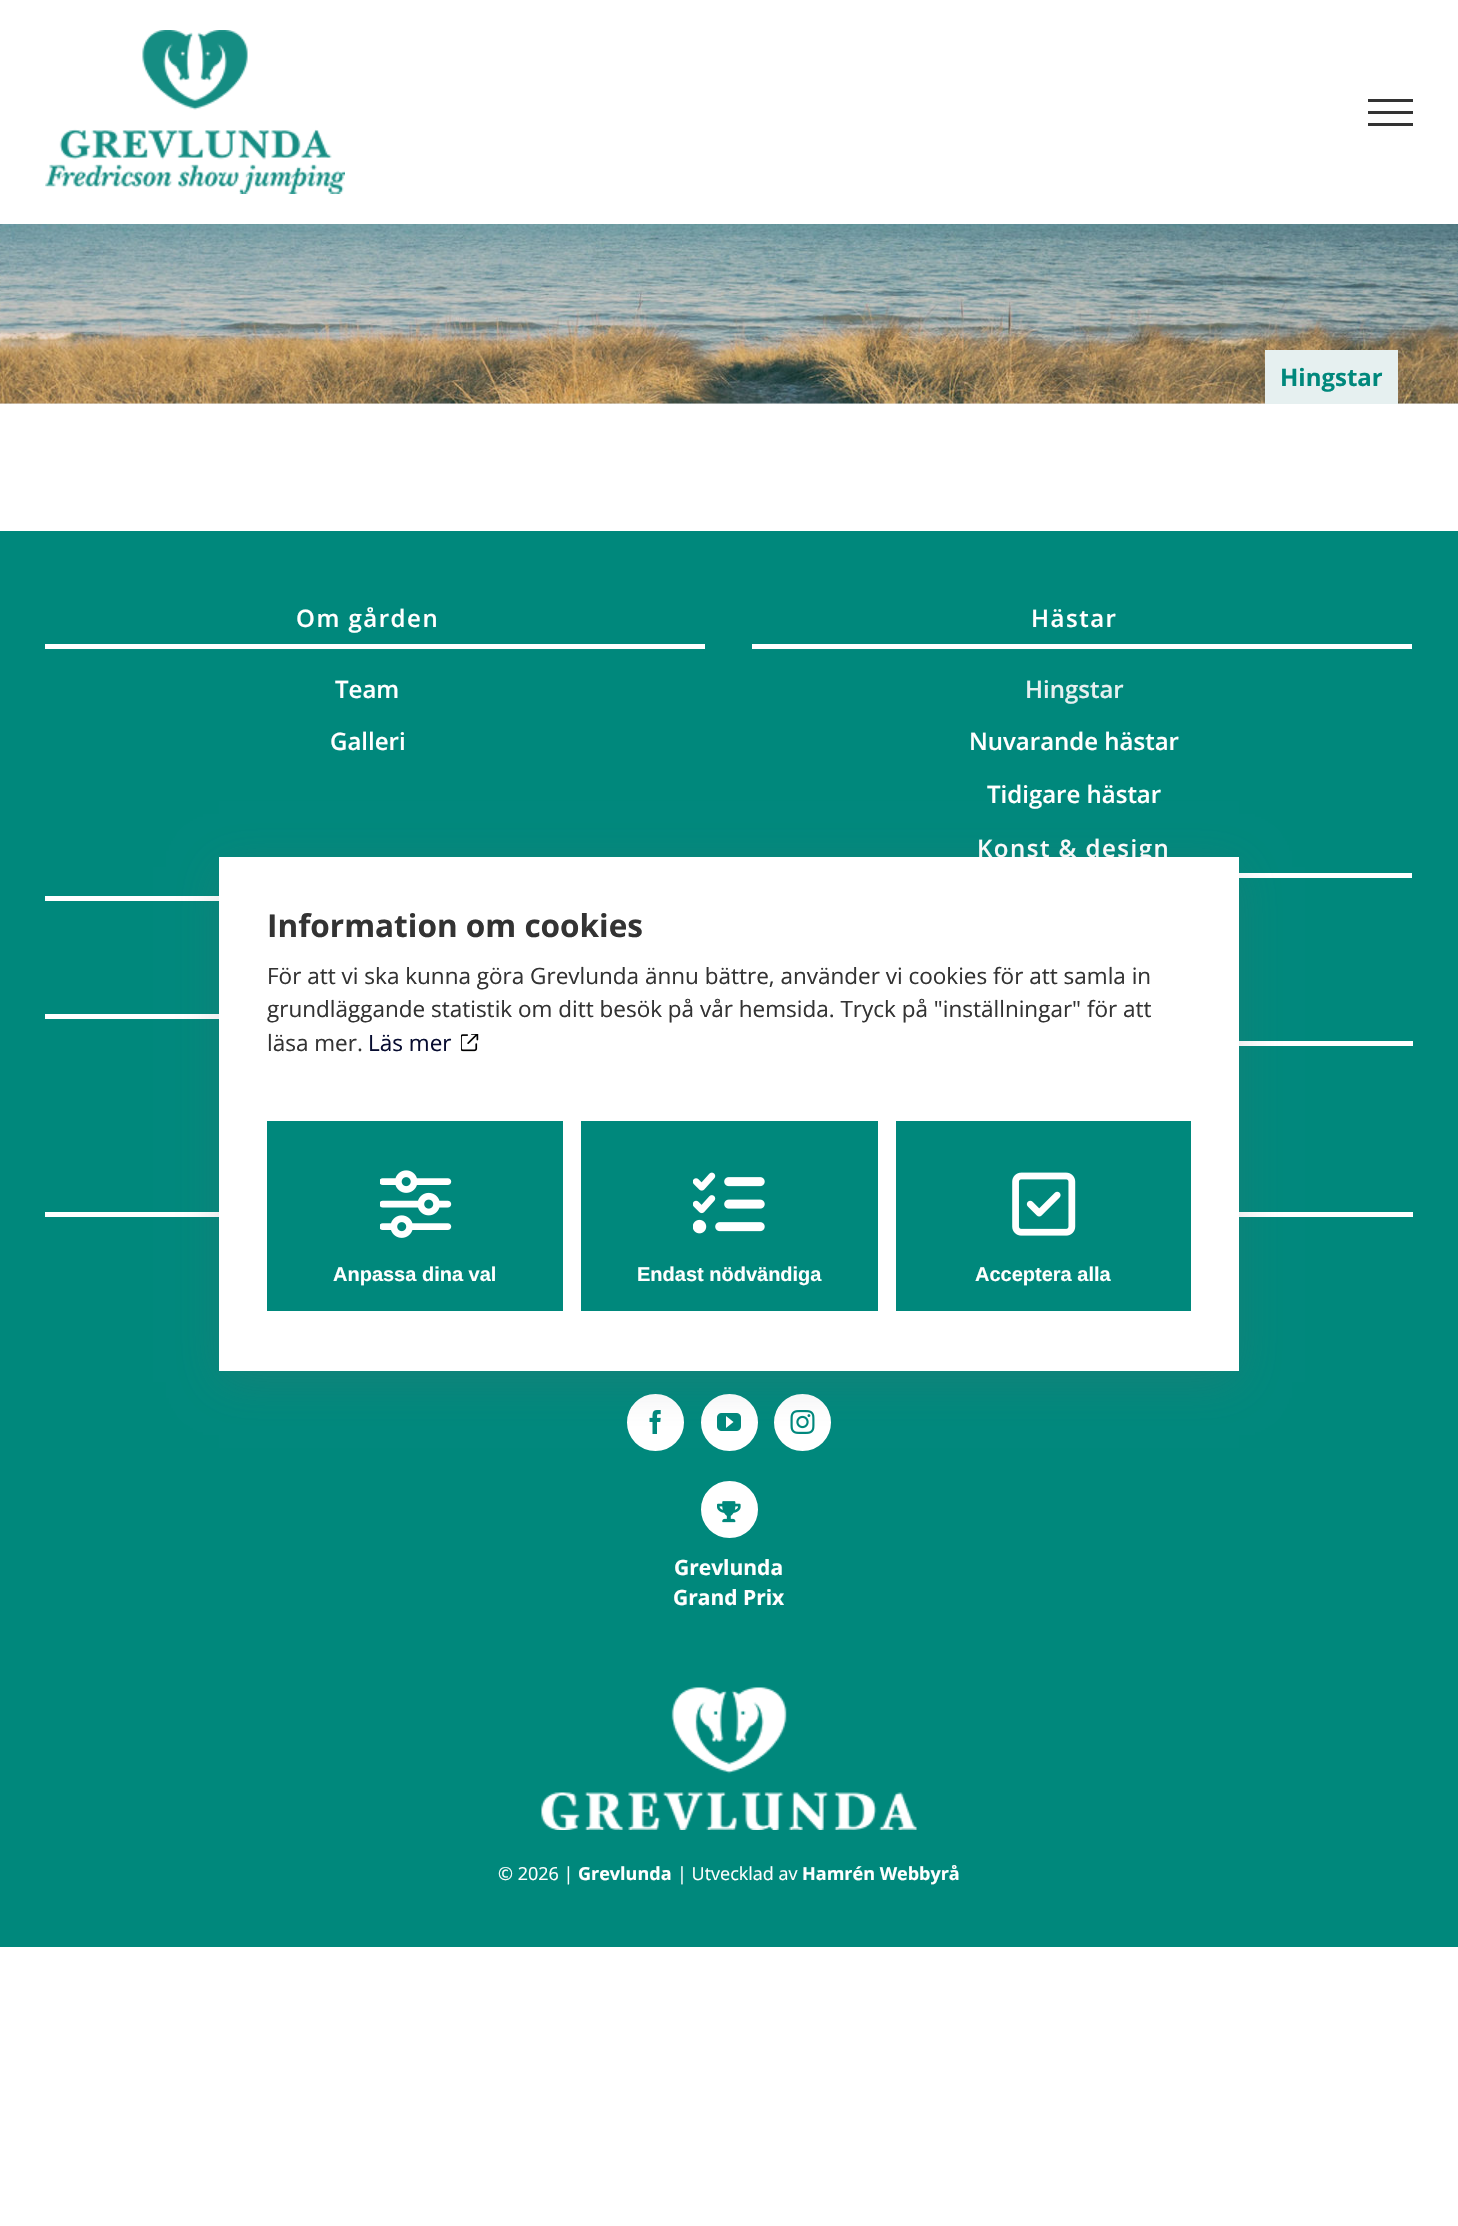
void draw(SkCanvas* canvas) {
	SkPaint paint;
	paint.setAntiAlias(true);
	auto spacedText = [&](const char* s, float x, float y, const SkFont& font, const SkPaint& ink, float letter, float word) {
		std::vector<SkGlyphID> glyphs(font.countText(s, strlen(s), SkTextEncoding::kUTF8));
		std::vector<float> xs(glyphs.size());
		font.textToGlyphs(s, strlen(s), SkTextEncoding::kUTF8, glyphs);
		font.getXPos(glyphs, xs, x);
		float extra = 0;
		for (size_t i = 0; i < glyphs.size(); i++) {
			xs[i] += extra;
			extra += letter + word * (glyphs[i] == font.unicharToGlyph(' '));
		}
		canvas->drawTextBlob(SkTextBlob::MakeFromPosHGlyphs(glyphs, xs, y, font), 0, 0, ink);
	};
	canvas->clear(0xffffffff);
	canvas->drawImageRect(SkImages::DeferredFromEncodedData(SkData::MakeFromFileName("img1.png")), SkRect::MakeXYWH(45, 30, 300, 164), SkSamplingOptions());
	paint.setColor(0xff333333);
	canvas->drawRect(SkRect::MakeXYWH(1368, 99, 45, 3), paint);
	canvas->drawRect(SkRect::MakeXYWH(1368, 111, 45, 3), paint);
	canvas->drawRect(SkRect::MakeXYWH(1368, 123, 45, 3), paint);
	paint.setColor(0xffe6e6e6);
	canvas->drawRect(SkRect::MakeXYWH(0, 403, 1458, 1), paint);
	canvas->drawImageRect(SkImages::DeferredFromEncodedData(SkData::MakeFromFileName("img2.png")), SkRect::MakeXYWH(0, 224, 1458, 180), SkSamplingOptions());
	paint.setColor(0xffe6f0f0);
	canvas->drawRect(SkRect::MakeXYWH(1265, 350, 133, 54), paint);
	SkFont f1(fontMgr->matchFamilyStyle("Open Sans", SkFontStyle::Bold()), 24);
	f1.setSubpixel(true);
	paint.setColor(0xff00887c);
	canvas->drawString("Hingstar", 1280, 386, f1, paint);
	canvas->drawRect(SkRect::MakeXYWH(0, 531, 1458, 1416), paint);
	paint.setColor(0xffffffff);
	canvas->drawRect(SkRect::MakeXYWH(45, 644, 660, 5), paint);
	SkFont f2(fontMgr->matchFamilyStyle("Open Sans", SkFontStyle(600, SkFontStyle::kNormal_Width, SkFontStyle::kUpright_Slant)), 24);
	f2.setSubpixel(true);
	spacedText("Om gården", 296, 627, f2, paint, 1.5, 0);
	canvas->drawString("Team", 335, 698, f2, paint);
	canvas->drawString("Galleri", 330, 750, f2, paint);
	canvas->drawRect(SkRect::MakeXYWH(45, 896, 174, 5), paint);
	canvas->drawRect(SkRect::MakeXYWH(752, 644, 660, 5), paint);
	spacedText("Hästar", 1031, 627, f2, paint, 1.5, 0);
	paint.setColor(0xffe6f0f0);
	canvas->drawString("Hingstar", 1025, 698, f2, paint);
	paint.setColor(0xffffffff);
	canvas->drawString("Nuvarande hästar", 969, 750, f2, paint);
	canvas->drawString("Tidigare hästar", 987, 803, f2, paint);
	canvas->drawRect(SkRect::MakeXYWH(1239, 873, 173, 5), paint);
	spacedText("Konst & design", 977, 857, f2, paint, 1.5, 0);
	canvas->drawRect(SkRect::MakeXYWH(45, 1014, 174, 5), paint);
	canvas->drawRect(SkRect::MakeXYWH(1239, 1041, 174, 5), paint);
	canvas->drawRect(SkRect::MakeXYWH(45, 1212, 1368, 5), paint);
	canvas->drawCircle(655.5, 1422.5, 27.5, paint);
	paint.setStroke(true);
	paint.setStrokeWidth(2);
	canvas->drawCircle(655.5, 1422.5, 27.5, paint);
	canvas->drawImageRect(SkImages::DeferredFromEncodedData(SkData::MakeFromFileName("img3.png")), SkRect::MakeXYWH(649, 1410, 12, 24), SkSamplingOptions());
	paint.setStroke(false);
	canvas->drawCircle(729.5, 1422.5, 27.5, paint);
	paint.setStroke(true);
	canvas->drawCircle(729.5, 1422.5, 27.5, paint);
	canvas->drawImageRect(SkImages::DeferredFromEncodedData(SkData::MakeFromFileName("img4.png")), SkRect::MakeXYWH(717, 1413, 24, 18), SkSamplingOptions());
	paint.setStroke(false);
	canvas->drawCircle(802.5, 1422.5, 27.5, paint);
	paint.setStroke(true);
	canvas->drawCircle(802.5, 1422.5, 27.5, paint);
	canvas->drawImageRect(SkImages::DeferredFromEncodedData(SkData::MakeFromFileName("img5.png")), SkRect::MakeXYWH(790, 1410, 25, 24), SkSamplingOptions());
	paint.setStroke(false);
	canvas->drawCircle(729.5, 1509.5, 27.5, paint);
	paint.setStroke(true);
	canvas->drawCircle(729.5, 1509.5, 27.5, paint);
	canvas->drawImageRect(SkImages::DeferredFromEncodedData(SkData::MakeFromFileName("img6.png")), SkRect::MakeXYWH(717, 1501, 24, 22), SkSamplingOptions());
	SkFont f3(fontMgr->matchFamilyStyle("Open Sans", SkFontStyle::Bold()), 21);
	f3.setSubpixel(true);
	paint.setStroke(false);
	canvas->drawString("Grevlunda", 674, 1575, f3, paint);
	canvas->drawString("Grand Prix", 673, 1605, f3, paint);
	canvas->drawImageRect(SkImages::DeferredFromEncodedData(SkData::MakeFromFileName("img7.png")), SkRect::MakeXYWH(541, 1687, 376, 143), SkSamplingOptions());
	SkFont f4(fontMgr->matchFamilyStyle("Open Sans", SkFontStyle::Normal()), 18);
	f4.setSubpixel(true);
	canvas->drawString("© 2026 |", 498, 1880, f4, paint);
	SkFont f5(fontMgr->matchFamilyStyle("Open Sans", SkFontStyle::Bold()), 18);
	f5.setSubpixel(true);
	canvas->drawString("Grevlunda", 578, 1880, f5, paint);
	canvas->drawString("| Utvecklad av", 677, 1880, f4, paint);
	canvas->drawString("Hamrén Webbyrå", 802, 1880, f5, paint);
	paint.setColor(0x3364646f);
	paint.setMaskFilter(SkMaskFilter::MakeBlur(kNormal_SkBlurStyle, 22));
	canvas->drawRect(SkRect::MakeXYWH(219, 867, 1020, 515), paint);
	paint.setMaskFilter(nullptr);
	paint.setColor(0xffffffff);
	canvas->drawRect(SkRect::MakeXYWH(219, 857, 1020, 514), paint);
	SkFont f6(fontMgr->matchFamilyStyle("Open Sans", SkFontStyle::Bold()), 31.5);
	f6.setSubpixel(true);
	paint.setColor(0xff333333);
	canvas->drawString("Information om cookies", 267, 937, f6, paint);
	SkFont f7(fontMgr->matchFamilyStyle("Open Sans", SkFontStyle::Normal()), 22.5);
	f7.setSubpixel(true);
	canvas->drawString("För att vi ska kunna göra Grevlunda ännu bättre, använder vi cookies för att samla in", 267, 984, f7, paint);
	canvas->drawString("grundläggande statistik om ditt besök på vår hemsida. Tryck på \"inställningar\" för att", 267, 1017, f7, paint);
	canvas->drawString("läsa mer.", 267, 1051, f7, paint);
	paint.setColor(0xff070c30);
	canvas->drawString("Läs mer", 368, 1051, f7, paint);
	canvas->drawImageRect(SkImages::DeferredFromEncodedData(SkData::MakeFromFileName("img8.png")), SkRect::MakeXYWH(461, 1034, 18, 18), SkSamplingOptions());
	paint.setColor(0xff00887c);
	canvas->drawRect(SkRect::MakeXYWH(267, 1121, 296, 190), paint);
	canvas->drawImageRect(SkImages::DeferredFromEncodedData(SkData::MakeFromFileName("img9.png")), SkRect::MakeXYWH(380, 1170, 72, 68), SkSamplingOptions());
	SkFont f8(fontMgr->matchFamilyStyle("Liberation Sans", SkFontStyle::Bold()), 20);
	f8.setSubpixel(true);
	paint.setColor(0xffffffff);
	canvas->drawString("Anpassa dina val", 333, 1281, f8, paint);
	paint.setColor(0xff00887c);
	canvas->drawRect(SkRect::MakeXYWH(581, 1121, 297, 190), paint);
	canvas->drawImageRect(SkImages::DeferredFromEncodedData(SkData::MakeFromFileName("img10.png")), SkRect::MakeXYWH(693, 1172, 72, 62), SkSamplingOptions());
	paint.setColor(0xffffffff);
	canvas->drawString("Endast nödvändiga", 637, 1281, f8, paint);
	paint.setColor(0xff00887c);
	canvas->drawRect(SkRect::MakeXYWH(896, 1121, 295, 190), paint);
	canvas->drawImageRect(SkImages::DeferredFromEncodedData(SkData::MakeFromFileName("img11.png")), SkRect::MakeXYWH(1012, 1172, 64, 64), SkSamplingOptions());
	paint.setColor(0xffffffff);
	canvas->drawString("Acceptera alla", 975, 1281, f8, paint);
}
